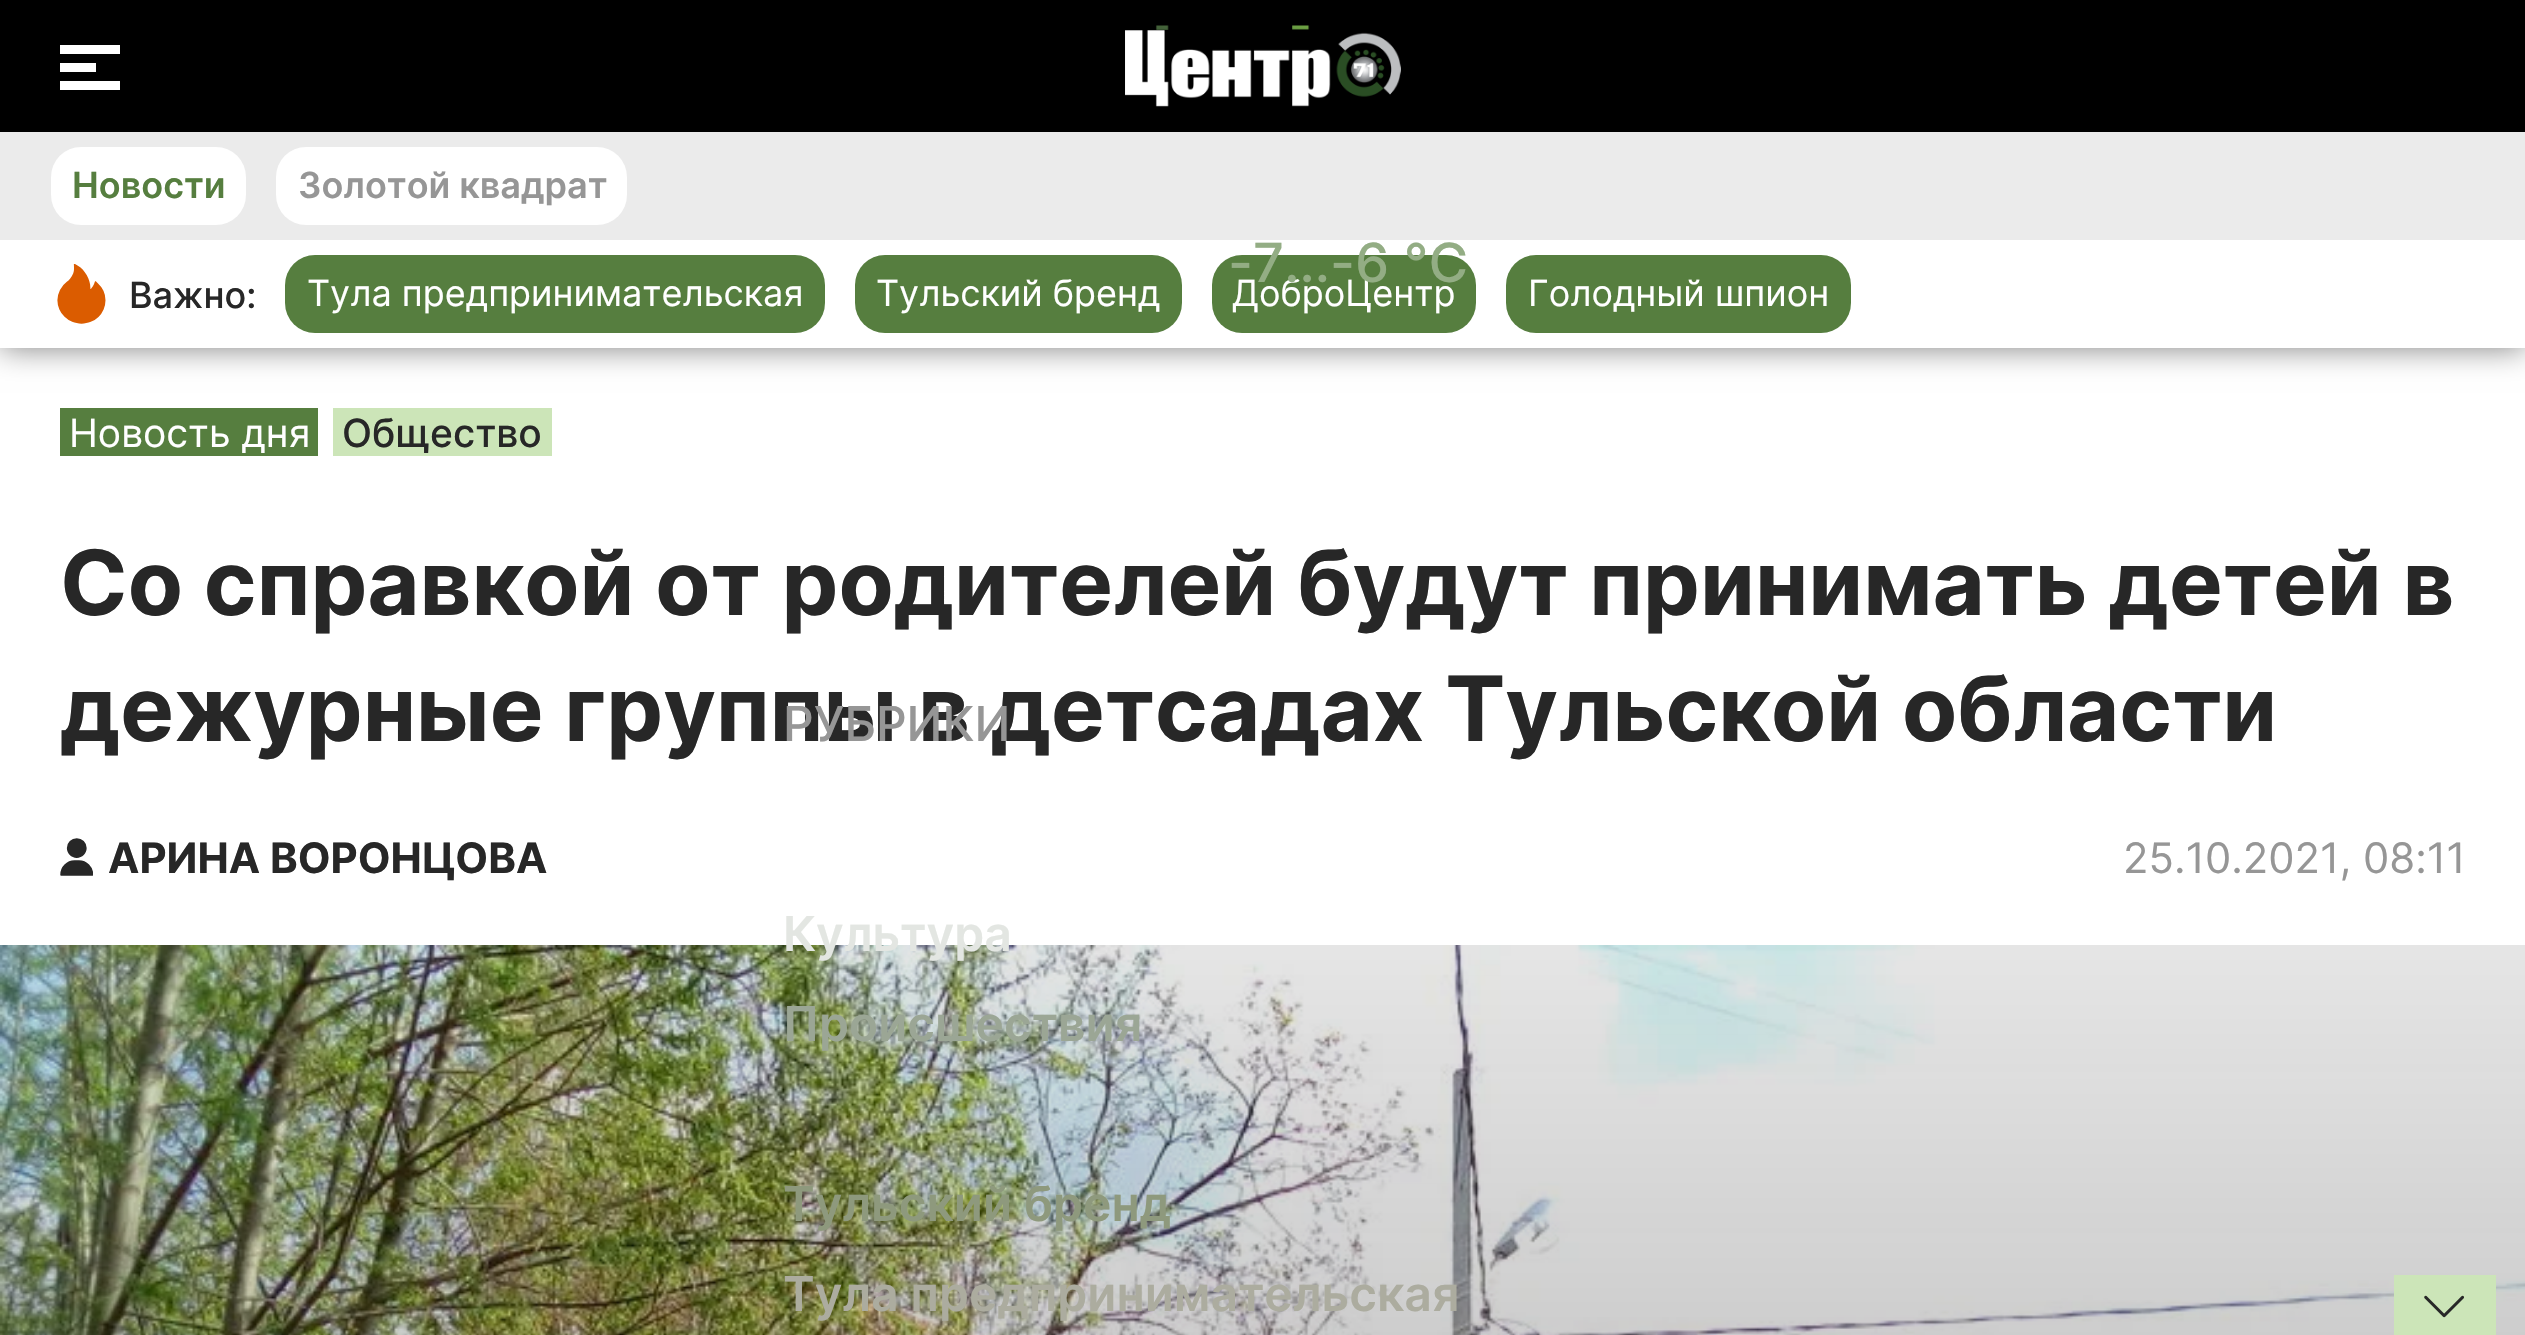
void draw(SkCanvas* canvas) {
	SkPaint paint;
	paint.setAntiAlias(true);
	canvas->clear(0xffffffff);
	paint.setColor(0x80000000);
	paint.setMaskFilter(SkMaskFilter::MakeBlur(kNormal_SkBlurStyle, 15));
	canvas->drawRect(SkRect::MakeXYWH(0, 132, 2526, 216), paint);
	paint.setMaskFilter(nullptr);
	paint.setColor(0xffffffff);
	canvas->drawRect(SkRect::MakeXYWH(0, 240, 2525, 108), paint);
	paint.setColor(0xffebebeb);
	canvas->drawRect(SkRect::MakeXYWH(0, 132, 2525, 108), paint);
	paint.setColor(0xffffffff);
	canvas->drawRoundRect(SkRect::MakeXYWH(51, 147, 195, 78), 30, 30, paint);
	SkFont f1(fontMgr->matchFamilyStyle("Inter", SkFontStyle(600, SkFontStyle::kNormal_Width, SkFontStyle::kUpright_Slant)), 36);
	f1.setSubpixel(true);
	paint.setColor(0xff567e3f);
	canvas->drawString("Новости", 72, 198, f1, paint);
	paint.setColor(0xffffffff);
	canvas->drawRoundRect(SkRect::MakeXYWH(276, 147, 351, 78), 30, 30, paint);
	paint.setColor(0xff969696);
	canvas->drawString("Золотой квадрат", 298, 198, f1, paint);
	canvas->drawImageRect(SkImages::DeferredFromEncodedData(SkData::MakeFromFileName("img1.png")), SkRect::MakeXYWH(57, 264, 49, 60), SkSamplingOptions());
	SkFont f2(fontMgr->matchFamilyStyle("Inter", SkFontStyle(500, SkFontStyle::kNormal_Width, SkFontStyle::kUpright_Slant)), 36);
	f2.setSubpixel(true);
	paint.setColor(0xff272727);
	canvas->drawString("Важно:", 129, 308, f2, paint);
	paint.setColor(0xff567e3f);
	canvas->drawRoundRect(SkRect::MakeXYWH(285, 255, 540, 78), 30, 30, paint);
	SkFont f3(fontMgr->matchFamilyStyle("Inter", SkFontStyle::Normal()), 36);
	f3.setSubpixel(true);
	paint.setColor(0xffffffff);
	canvas->drawString("Тула предпринимательская", 307, 306, f3, paint);
	paint.setColor(0xff567e3f);
	canvas->drawRoundRect(SkRect::MakeXYWH(855, 255, 327, 78), 30, 30, paint);
	paint.setColor(0xffffffff);
	canvas->drawString("Тульский бренд", 876, 306, f3, paint);
	paint.setColor(0xff567e3f);
	canvas->drawRoundRect(SkRect::MakeXYWH(1212, 255, 264, 78), 30, 30, paint);
	paint.setColor(0xffffffff);
	canvas->drawString("ДоброЦентр", 1232, 306, f3, paint);
	paint.setColor(0xff567e3f);
	canvas->drawRoundRect(SkRect::MakeXYWH(1506, 255, 345, 78), 30, 30, paint);
	paint.setColor(0xffffffff);
	canvas->drawString("Голодный шпион", 1528, 306, f3, paint);
	paint.setColor(0xff000000);
	canvas->drawRect(SkRect::MakeXYWH(0, 0, 2525, 132), paint);
	paint.setColor(0xffffffff);
	canvas->drawRect(SkRect::MakeXYWH(60, 45, 60, 9), paint);
	canvas->drawRect(SkRect::MakeXYWH(60, 63, 36, 9), paint);
	canvas->drawRect(SkRect::MakeXYWH(60, 81, 60, 9), paint);
	canvas->drawImageRect(SkImages::DeferredFromEncodedData(SkData::MakeFromFileName("img2.png")), SkRect::MakeXYWH(1125, 25, 276, 82), SkSamplingOptions());
	SkFont f4(fontMgr->matchFamilyStyle("Inter", SkFontStyle(500, SkFontStyle::kNormal_Width, SkFontStyle::kUpright_Slant)), 54);
	f4.setSubpixel(true);
	paint.setColor(0xff93ad84);
	canvas->drawString("-7...-6 °С", 1228, 282, f4, paint);
	SkFont f5(fontMgr->matchFamilyStyle("Inter", SkFontStyle::Bold()), 90);
	f5.setSubpixel(true);
	paint.setColor(0xff272727);
	canvas->drawString("дежурные группы в детсадах Тульской области", 60, 741, f5, paint);
	SkFont f6(fontMgr->matchFamilyStyle("Inter", SkFontStyle(500, SkFontStyle::kNormal_Width, SkFontStyle::kUpright_Slant)), 48);
	f6.setSubpixel(true);
	paint.setColor(0xff969696);
	canvas->drawString("РУБРИКИ", 783, 741, f6, paint);
	canvas->drawImageRect(SkImages::DeferredFromEncodedData(SkData::MakeFromFileName("img4.png")), SkRect::MakeXYWH(0, 945, 2525, 390), SkSamplingOptions());
	SkFont f7(fontMgr->matchFamilyStyle("Inter", SkFontStyle(600, SkFontStyle::kNormal_Width, SkFontStyle::kUpright_Slant)), 48);
	f7.setSubpixel(true);
	paint.setColor(0xffe3e6e2);
	canvas->drawString("Культура", 783, 951, f7, paint);
	paint.setColor(0xff9ba695);
	canvas->drawString("Происшествия", 783, 1041, f7, paint);
	paint.setColor(0xff8e997d);
	canvas->drawString("Тульский бренд", 783, 1221, f7, paint);
	paint.setColor(0xffacac9f);
	canvas->drawString("Тула предпринимательская", 783, 1311, f7, paint);
	paint.setColor(0xff567e3f);
	canvas->drawRect(SkRect::MakeXYWH(60, 408, 258, 48), paint);
	SkFont f8(fontMgr->matchFamilyStyle("Inter", SkFontStyle::Normal()), 39);
	f8.setSubpixel(true);
	paint.setColor(0xffffffff);
	canvas->drawString("Новость дня", 69, 447, f8, paint);
	paint.setColor(0xffcce5b8);
	canvas->drawRect(SkRect::MakeXYWH(333, 408, 219, 48), paint);
	SkFont f9(fontMgr->matchFamilyStyle("Inter", SkFontStyle(500, SkFontStyle::kNormal_Width, SkFontStyle::kUpright_Slant)), 39);
	f9.setSubpixel(true);
	paint.setColor(0xff272727);
	canvas->drawString("Общество", 342, 447, f9, paint);
	canvas->drawString("Со справкой от родителей будут принимать детей в", 60, 615, f5, paint);
	canvas->drawImageRect(SkImages::DeferredFromEncodedData(SkData::MakeFromFileName("img3.png")), SkRect::MakeXYWH(60, 838, 33, 38), SkSamplingOptions());
	SkFont f10(fontMgr->matchFamilyStyle("Inter", SkFontStyle::Bold()), 42);
	f10.setSubpixel(true);
	canvas->drawString("АРИНА ВОРОНЦОВА", 108, 873, f10, paint);
	SkFont f11(fontMgr->matchFamilyStyle("Inter", SkFontStyle::Normal()), 42);
	f11.setSubpixel(true);
	paint.setColor(0xff969696);
	canvas->drawString("25.10.2021, 08:11", 2123, 873, f11, paint);
	paint.setColor(0xffcce5b8);
	canvas->drawRect(SkRect::MakeXYWH(2394, 1275, 102, 60), paint);
	canvas->drawImageRect(SkImages::DeferredFromEncodedData(SkData::MakeFromFileName("img5.png")), SkRect::MakeXYWH(2424, 1295, 40, 23), SkSamplingOptions());
}
